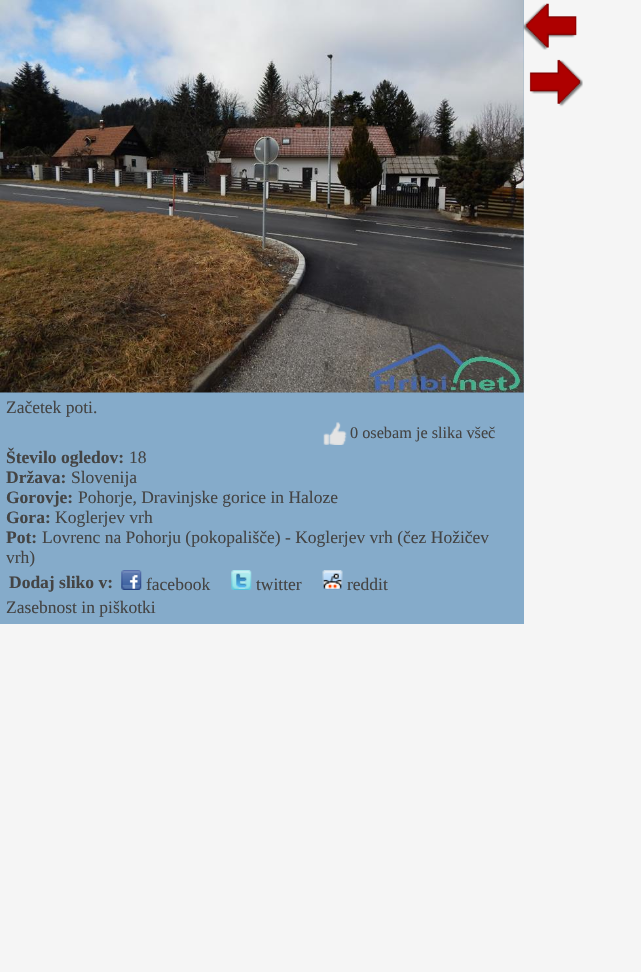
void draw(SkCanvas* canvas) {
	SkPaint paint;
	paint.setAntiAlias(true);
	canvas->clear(0xfff5f5f5);
	paint.setColor(0xff85abca);
	canvas->drawRect(SkRect::MakeXYWH(0, 0, 524, 624), paint);
	canvas->drawImageRect(SkImages::DeferredFromEncodedData(SkData::MakeFromFileName("img3.png")), SkRect::MakeXYWH(0, 0, 524, 393), SkSamplingOptions());
	canvas->drawImageRect(SkImages::DeferredFromEncodedData(SkData::MakeFromFileName("img1.png")), SkRect::MakeXYWH(523, 3, 54, 47), SkSamplingOptions());
	canvas->drawImageRect(SkImages::DeferredFromEncodedData(SkData::MakeFromFileName("img2.png")), SkRect::MakeXYWH(529, 59, 54, 48), SkSamplingOptions());
	SkFont f1(fontMgr->matchFamilyStyle("Liberation Serif", SkFontStyle::Normal()), 17.5);
	f1.setSubpixel(true);
	paint.setColor(0xff444444);
	canvas->drawString("Začetek poti.", 6, 413, f1, paint);
	canvas->drawImageRect(SkImages::DeferredFromEncodedData(SkData::MakeFromFileName("img4.png")), SkRect::MakeXYWH(323, 422, 24, 23), SkSamplingOptions());
	SkFont f2(fontMgr->matchFamilyStyle("Liberation Serif", SkFontStyle::Normal()), 16.25);
	f2.setSubpixel(true);
	canvas->drawString("0 osebam je slika všeč", 350, 438, f2, paint);
	SkFont f3(fontMgr->matchFamilyStyle("Liberation Serif", SkFontStyle::Bold()), 17.5);
	f3.setSubpixel(true);
	canvas->drawString("Število ogledov:", 6, 463, f3, paint);
	canvas->drawString("18", 129, 463, f1, paint);
	canvas->drawString("Država:", 6, 483, f3, paint);
	canvas->drawString("Slovenija", 71, 483, f1, paint);
	canvas->drawString("Gorovje:", 6, 503, f3, paint);
	canvas->drawString("Pohorje, Dravinjske gorice in Haloze", 78, 503, f1, paint);
	canvas->drawString("Gora:", 6, 523, f3, paint);
	canvas->drawString("Koglerjev vrh", 55, 523, f1, paint);
	canvas->drawString("Pot:", 6, 543, f3, paint);
	canvas->drawString("Lovrenc na Pohorju (pokopališče) - Koglerjev vrh (čez Hožičev", 42, 543, f1, paint);
	canvas->drawString("vrh)", 6, 563, f1, paint);
	canvas->drawString("Dodaj sliko v:", 9, 588, f3, paint);
	canvas->drawImageRect(SkImages::DeferredFromEncodedData(SkData::MakeFromFileName("img5.png")), SkRect::MakeXYWH(121, 570, 21, 20), SkSamplingOptions());
	canvas->drawString("facebook", 146, 590, f1, paint);
	canvas->drawImageRect(SkImages::DeferredFromEncodedData(SkData::MakeFromFileName("img6.png")), SkRect::MakeXYWH(231, 570, 21, 20), SkSamplingOptions());
	canvas->drawString("twitter", 256, 590, f1, paint);
	canvas->drawImageRect(SkImages::DeferredFromEncodedData(SkData::MakeFromFileName("img7.png")), SkRect::MakeXYWH(322, 570, 21, 20), SkSamplingOptions());
	canvas->drawString("reddit", 347, 590, f1, paint);
	canvas->drawString("Zasebnost in piškotki", 6, 613, f1, paint);
}
